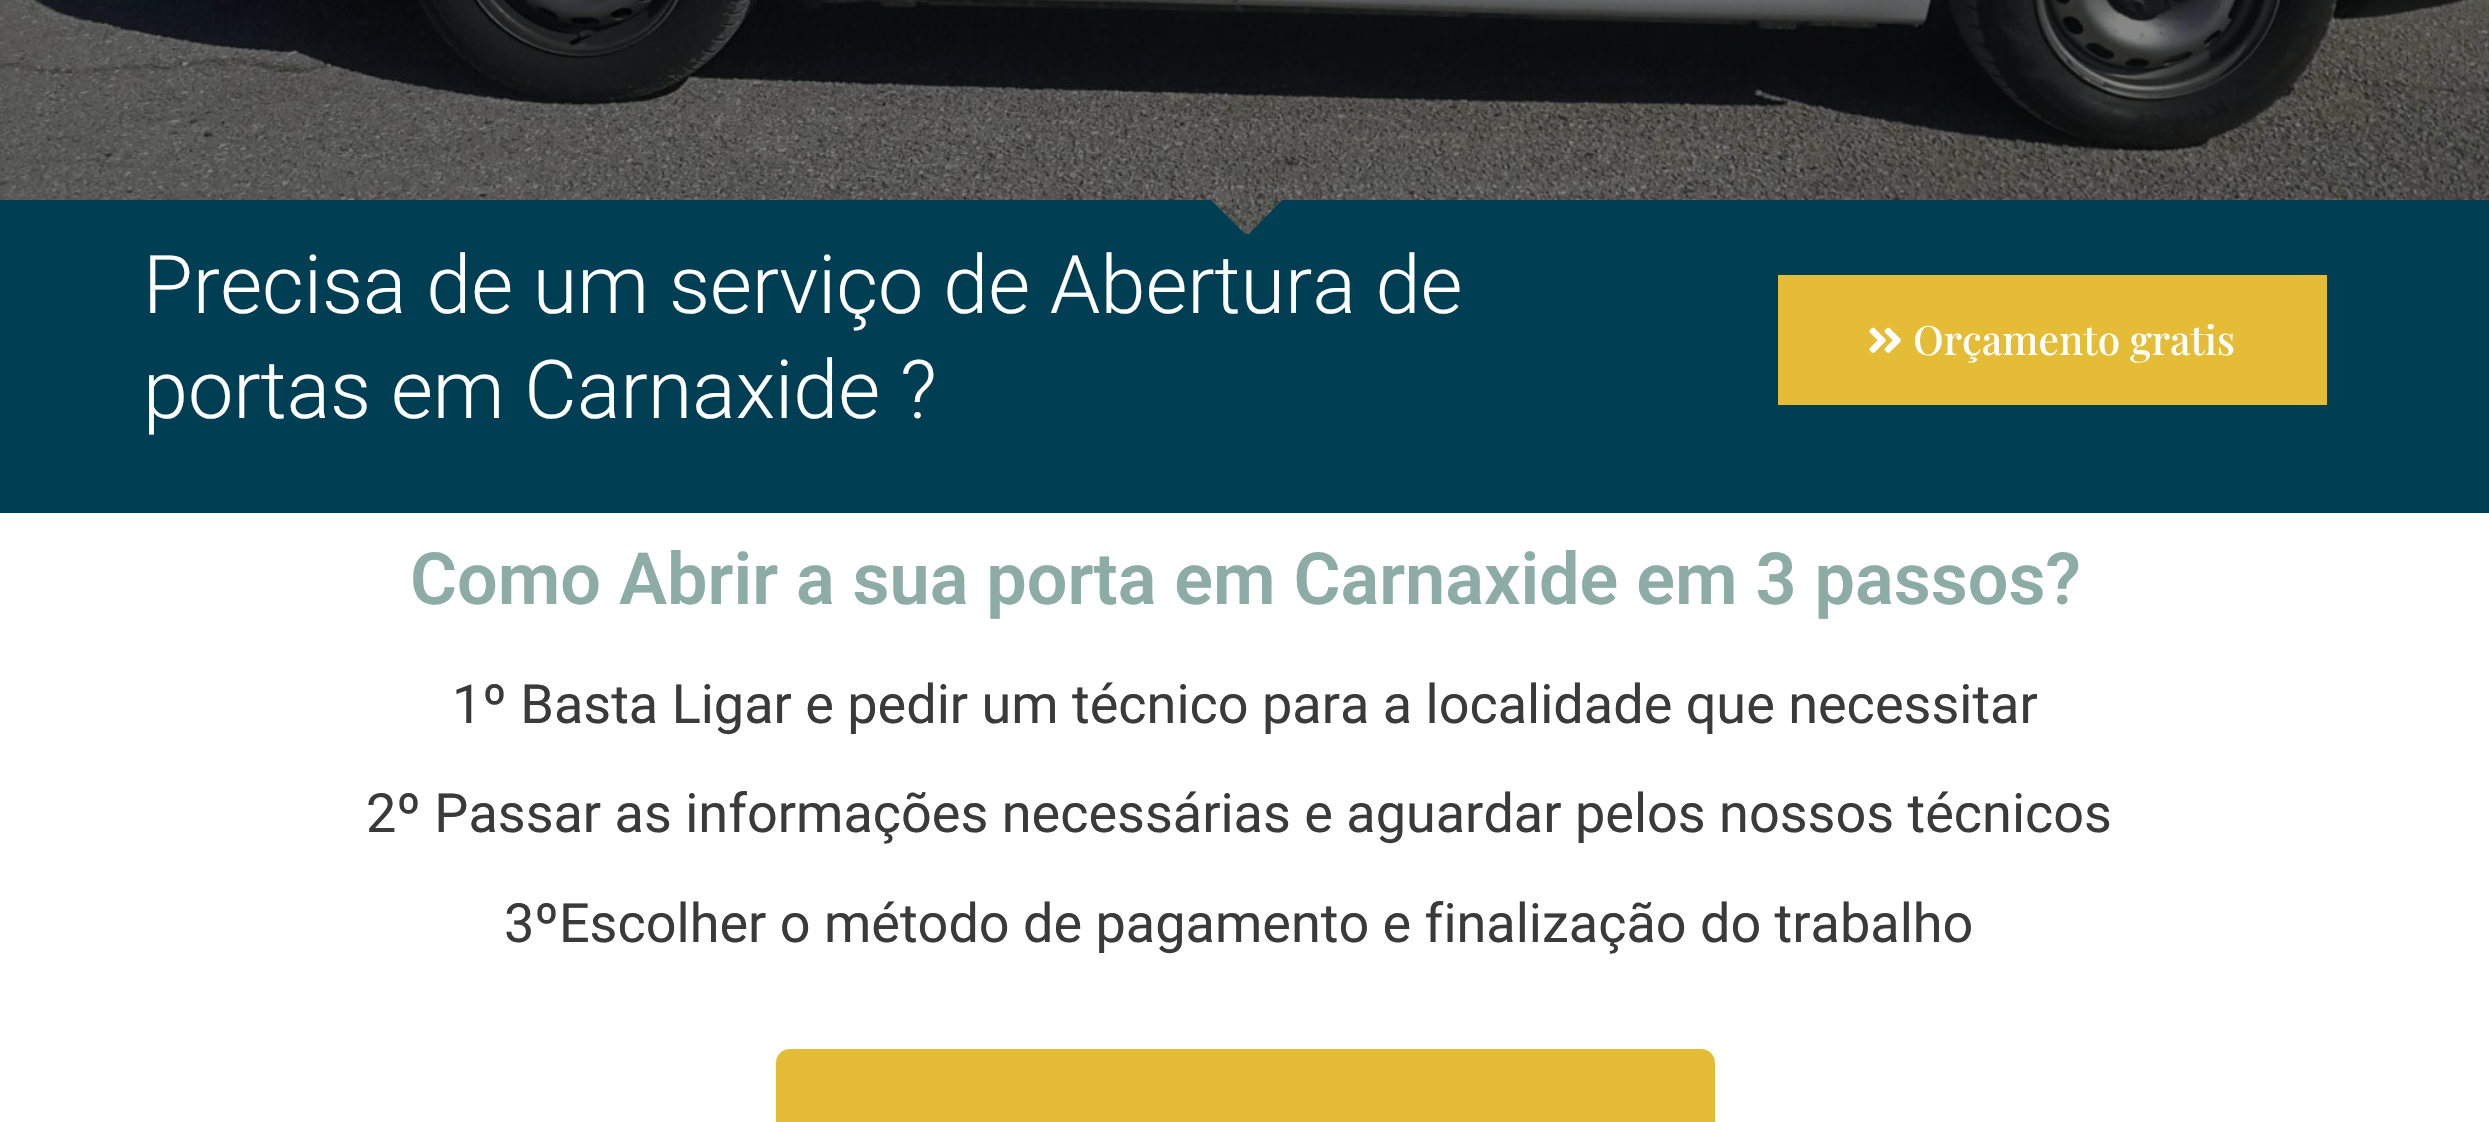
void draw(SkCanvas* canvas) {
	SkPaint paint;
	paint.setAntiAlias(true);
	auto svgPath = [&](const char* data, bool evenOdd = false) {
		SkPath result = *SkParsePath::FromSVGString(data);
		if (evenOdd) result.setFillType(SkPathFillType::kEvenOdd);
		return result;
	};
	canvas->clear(0xffffffff);
	canvas->drawImageRect(SkImages::DeferredFromEncodedData(SkData::MakeFromFileName("img1.png")), SkRect::MakeXYWH(0, 0, 2489, 234), SkSamplingOptions());
	paint.setColor(0xff003e53);
	canvas->drawPath(svgPath("M1282 200L1247 236L1211 200H0V236H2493V200"), paint);
	canvas->drawRect(SkRect::MakeXYWH(0, 234, 2489, 279), paint);
	SkFont f1(fontMgr->matchFamilyStyle("Roboto", SkFontStyle(300, SkFontStyle::kNormal_Width, SkFontStyle::kUpright_Slant)), 81);
	f1.setSubpixel(true);
	paint.setColor(0xffffffff);
	canvas->drawString("Precisa de um serviço de Abertura de", 143, 313, f1, paint);
	canvas->drawString("portas em Carnaxide ?", 143, 418, f1, paint);
	paint.setColor(0xffe4bc36);
	canvas->drawRect(SkRect::MakeXYWH(1778, 275, 549, 130), paint);
	canvas->drawImageRect(SkImages::DeferredFromEncodedData(SkData::MakeFromFileName("img2.png")), SkRect::MakeXYWH(1869, 327, 32, 26), SkSamplingOptions());
	SkFont f2(fontMgr->matchFamilyStyle("Playfair Display", SkFontStyle(500, SkFontStyle::kNormal_Width, SkFontStyle::kUpright_Slant)), 40.5);
	f2.setSubpixel(true);
	paint.setColor(0xffffffff);
	canvas->drawString("Orçamento gratis", 1913, 355, f2, paint);
	SkFont f3(fontMgr->matchFamilyStyle("Roboto", SkFontStyle(600, SkFontStyle::kNormal_Width, SkFontStyle::kUpright_Slant)), 72);
	f3.setSubpixel(true);
	paint.setColor(0xff8daca6);
	canvas->drawString("Como Abrir a sua porta em Carnaxide em 3 passos?", 410, 604, f3, paint);
	SkFont f4(fontMgr->matchFamilyStyle("Roboto", SkFontStyle::Normal()), 54);
	f4.setSubpixel(true);
	paint.setColor(0xff3a3a3a);
	canvas->drawString("1º Basta Ligar e pedir um técnico para a localidade que necessitar", 452, 723, f4, paint);
	canvas->drawString("2º Passar as informações necessárias e aguardar pelos nossos técnicos", 366, 832, f4, paint);
	canvas->drawString("3ºEscolher o método de pagamento e finalização do trabalho", 504, 942, f4, paint);
	paint.setColor(0xffe4bc36);
	canvas->drawRoundRect(SkRect::MakeXYWH(776, 1049, 939, 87), 14, 14, paint);
}
